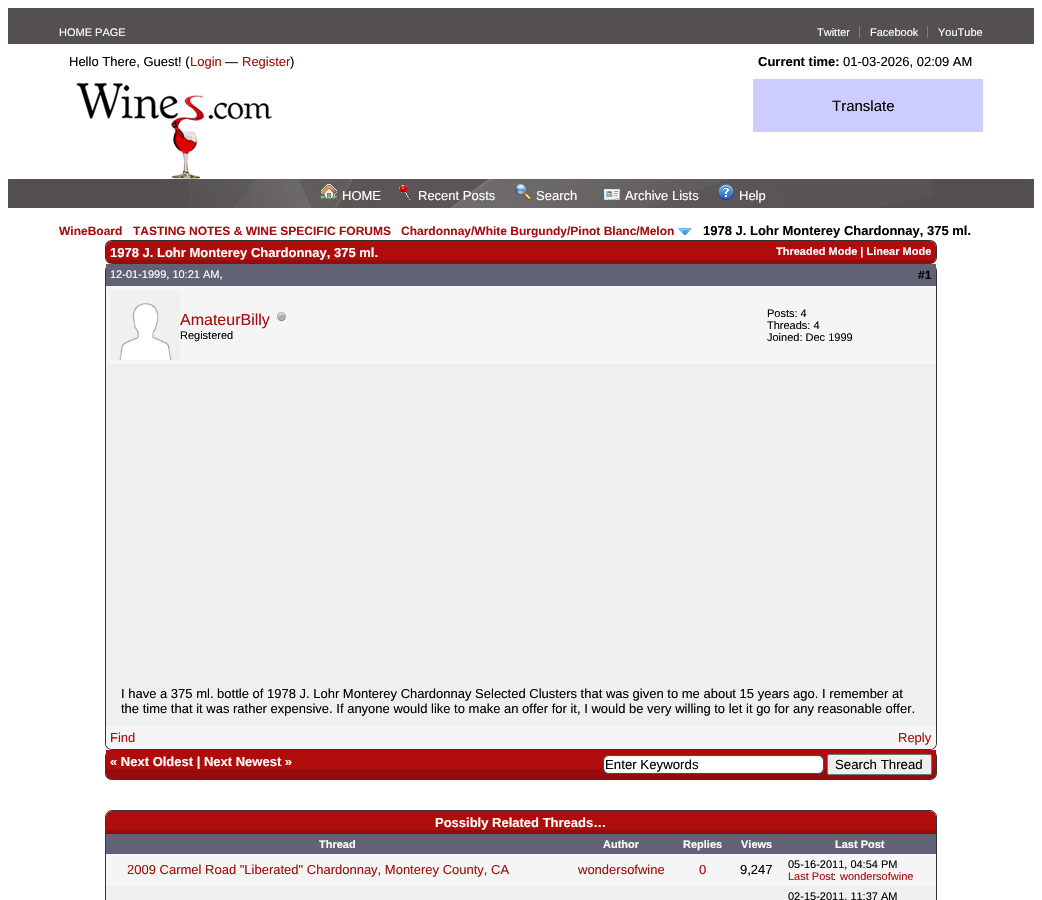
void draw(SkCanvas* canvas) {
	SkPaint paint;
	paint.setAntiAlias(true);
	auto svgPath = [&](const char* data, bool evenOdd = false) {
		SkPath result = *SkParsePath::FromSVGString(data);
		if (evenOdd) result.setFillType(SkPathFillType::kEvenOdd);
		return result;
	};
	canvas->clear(0xffffffff);
	paint.setColor(0xff545050);
	canvas->drawRect(SkRect::MakeXYWH(8, 8, 1026, 36), paint);
	SkFont f1(fontMgr->matchFamilyStyle("Liberation Sans", SkFontStyle::Normal()), 11);
	f1.setSubpixel(true);
	paint.setColor(0xffffffff);
	canvas->drawString("HOME PAGE", 59, 36, f1, paint);
	canvas->drawString("Twitter", 817, 36, f1, paint);
	paint.setColor(0xff7f7c7c);
	canvas->drawRect(SkRect::MakeXYWH(859, 26, 1, 12), paint);
	paint.setColor(0xffffffff);
	canvas->drawString("Facebook", 870, 36, f1, paint);
	paint.setColor(0xff7f7c7c);
	canvas->drawRect(SkRect::MakeXYWH(927, 26, 1, 12), paint);
	paint.setColor(0xffffffff);
	canvas->drawString("YouTube", 938, 36, f1, paint);
	SkFont f2(fontMgr->matchFamilyStyle("Liberation Sans", SkFontStyle::Normal()), 13);
	f2.setSubpixel(true);
	paint.setColor(0xff000000);
	canvas->drawString("Hello There, Guest! (", 69, 66, f2, paint);
	paint.setColor(0xffa50e0e);
	canvas->drawString("Login", 190, 66, f2, paint);
	paint.setColor(0xff000000);
	canvas->drawString("—", 225, 66, f2, paint);
	paint.setColor(0xffa50e0e);
	canvas->drawString("Register", 242, 66, f2, paint);
	paint.setColor(0xff000000);
	canvas->drawString(")", 290, 66, f2, paint);
	SkFont f3(fontMgr->matchFamilyStyle("Liberation Sans", SkFontStyle::Bold()), 13);
	f3.setSubpixel(true);
	canvas->drawString("Current time:", 758, 66, f3, paint);
	canvas->drawString("01-03-2026, 02:09 AM", 843, 66, f2, paint);
	canvas->drawImageRect(SkImages::DeferredFromEncodedData(SkData::MakeFromFileName("img1.png")), SkRect::MakeXYWH(76, 83, 196, 96), SkSamplingOptions());
	paint.setColor(0xffccccff);
	canvas->drawRect(SkRect::MakeXYWH(753, 79, 230, 53), paint);
	SkFont f4(fontMgr->matchFamilyStyle("Liberation Sans", SkFontStyle::Normal()), 15);
	f4.setSubpixel(true);
	paint.setColor(0xff000000);
	canvas->drawString("Translate", 832, 111, f4, paint);
	paint.setColor(0xff545050);
	canvas->drawRect(SkRect::MakeXYWH(8, 179, 1026, 29), paint);
	canvas->drawImageRect(SkImages::DeferredFromEncodedData(SkData::MakeFromFileName("img2.png")), SkRect::MakeXYWH(189, 179, 744, 29), SkSamplingOptions());
	canvas->drawImageRect(SkImages::DeferredFromEncodedData(SkData::MakeFromFileName("img3.png")), SkRect::MakeXYWH(321, 184, 16, 15), SkSamplingOptions());
	paint.setColor(0xffffffff);
	canvas->drawString("HOME", 342, 200, f2, paint);
	canvas->drawImageRect(SkImages::DeferredFromEncodedData(SkData::MakeFromFileName("img4.png")), SkRect::MakeXYWH(399, 185, 11, 15), SkSamplingOptions());
	canvas->drawString("Recent Posts", 418, 200, f2, paint);
	canvas->drawImageRect(SkImages::DeferredFromEncodedData(SkData::MakeFromFileName("img5.png")), SkRect::MakeXYWH(515, 184, 16, 16), SkSamplingOptions());
	canvas->drawString("Search", 536, 200, f2, paint);
	canvas->drawImageRect(SkImages::DeferredFromEncodedData(SkData::MakeFromFileName("img6.png")), SkRect::MakeXYWH(604, 189, 16, 11), SkSamplingOptions());
	canvas->drawString("Archive Lists", 625, 200, f2, paint);
	canvas->drawImageRect(SkImages::DeferredFromEncodedData(SkData::MakeFromFileName("img7.png")), SkRect::MakeXYWH(718, 184, 16, 16), SkSamplingOptions());
	canvas->drawString("Help", 739, 200, f2, paint);
	SkFont f5(fontMgr->matchFamilyStyle("Liberation Sans", SkFontStyle::Bold()), 12);
	f5.setSubpixel(true);
	paint.setColor(0xffa50e0e);
	canvas->drawString("WineBoard", 59, 235, f5, paint);
	canvas->drawString("TASTING NOTES & WINE SPECIFIC FORUMS", 133, 235, f5, paint);
	canvas->drawString("Chardonnay/White Burgundy/Pinot Blanc/Melon", 401, 235, f5, paint);
	canvas->drawImageRect(SkImages::DeferredFromEncodedData(SkData::MakeFromFileName("img8.png")), SkRect::MakeXYWH(678, 228, 14, 7), SkSamplingOptions());
	paint.setColor(0xff000000);
	canvas->drawString("1978 J. Lohr Monterey Chardonnay, 375 ml.", 703, 235, f3, paint);
	paint.setColor(0xff333333);
	canvas->drawPath(svgPath("M112 240H930C934 240 937 243 937 247V257C937 261 934 264 930 264H112C108 264 105 261 105 257V247C105 243 108 240 112 240ZM112 241H930C933 241 936 244 936 247V257C936 261 933 264 930 264H112C109 264 106 261 106 257V247C106 244 109 241 112 241Z", true), paint);
	canvas->drawImageRect(SkImages::DeferredFromEncodedData(SkData::MakeFromFileName("img9.png")), SkRect::MakeXYWH(106, 241, 830, 23), SkSamplingOptions());
	paint.setColor(0xffffffff);
	canvas->drawString("1978 J. Lohr Monterey Chardonnay, 375 ml.", 110, 257, f3, paint);
	SkFont f6(fontMgr->matchFamilyStyle("Liberation Sans", SkFontStyle::Bold()), 11);
	f6.setSubpixel(true);
	canvas->drawString("Threaded Mode | Linear Mode", 776, 255, f6, paint);
	paint.setColor(0xff333333);
	canvas->drawPath(svgPath("M112 264H930C934 264 937 267 937 271V743C937 747 934 750 930 750H112C108 750 105 747 105 743V271C105 267 108 264 112 264ZM112 264H930C933 264 936 267 936 271V743C936 746 933 749 930 749H112C109 749 106 746 106 743V271C106 267 109 264 112 264Z", true), paint);
	paint.setColor(0xff616276);
	canvas->drawRect(SkRect::MakeXYWH(106, 264, 830, 22), paint);
	paint.setColor(0xffffffff);
	canvas->drawString("12-01-1999, 10:21 AM,", 110, 278, f1, paint);
	paint.setColor(0xff000000);
	canvas->drawString("#1", 918, 279, f5, paint);
	paint.setColor(0xfff5f5f5);
	canvas->drawRect(SkRect::MakeXYWH(106, 286, 830, 78), paint);
	canvas->drawImageRect(SkImages::DeferredFromEncodedData(SkData::MakeFromFileName("img10.png")), SkRect::MakeXYWH(110, 290, 70, 70), SkSamplingOptions());
	SkFont f7(fontMgr->matchFamilyStyle("Liberation Sans", SkFontStyle::Normal()), 16);
	f7.setSubpixel(true);
	paint.setColor(0xffa50e0e);
	canvas->drawString("AmateurBilly", 180, 325, f7, paint);
	canvas->drawImageRect(SkImages::DeferredFromEncodedData(SkData::MakeFromFileName("img11.png")), SkRect::MakeXYWH(277, 312, 9, 9), SkSamplingOptions());
	paint.setColor(0xff000000);
	canvas->drawString("Registered", 180, 339, f1, paint);
	canvas->drawString("Posts: 4", 767, 317, f1, paint);
	canvas->drawString("Threads: 4", 767, 329, f1, paint);
	canvas->drawString("Joined: Dec 1999", 767, 341, f1, paint);
	paint.setColor(0xffefefef);
	canvas->drawRect(SkRect::MakeXYWH(106, 364, 830, 362), paint);
	paint.setColor(0xff000000);
	canvas->drawString("I have a 375 ml. bottle of 1978 J. Lohr Monterey Chardonnay Selected Clusters that was given to me about 15 years ago. I remember at", 121, 698, f2, paint);
	canvas->drawString("the time that it was rather expensive. If anyone would like to make an offer for it, I would be very willing to let it go for any reasonable offer.", 121, 713, f2, paint);
	paint.setColor(0xfff5f5f5);
	canvas->drawPath(svgPath("M106 726H936V743C936 746.5 933.5 749 930 749H112C108.5 749 106 746.5 106 743Z"), paint);
	paint.setColor(0xffa50e0e);
	canvas->drawString("Find", 110, 742, f2, paint);
	canvas->drawString("Reply", 898, 742, f2, paint);
	paint.setColor(0xff333333);
	canvas->drawPath(svgPath("M112 750H930C934 750 937 753 937 757V773C937 777 934 780 930 780H112C108 780 105 777 105 773V757C105 753 108 750 112 750ZM112 750H930C933 750 936 753 936 757V773C936 776 933 779 930 779H112C109 779 106 776 106 773V757C106 753 109 750 112 750Z", true), paint);
	paint.setColor(0xffb00c0c);
	canvas->drawPath(svgPath("M106 750H936V773C936 776.5 933.5 779 930 779H112C108.5 779 106 776.5 106 773Z"), paint);
	canvas->drawImageRect(SkImages::DeferredFromEncodedData(SkData::MakeFromFileName("img12.png")), SkRect::MakeXYWH(106, 769, 830, 10), SkSamplingOptions());
	paint.setColor(0xffffffff);
	canvas->drawString("« Next Oldest | Next Newest »", 110, 766, f3, paint);
	canvas->drawRoundRect(SkRect::MakeXYWH(603.5, 755.5, 220, 18), 5.5, 5.5, paint);
	paint.setStroke(true);
	paint.setStrokeWidth(1);
	paint.setColor(0xff0f5c8e);
	canvas->drawRoundRect(SkRect::MakeXYWH(603.5, 755.5, 220, 18), 5.5, 5.5, paint);
	SkFont f8(fontMgr->matchFamilyStyle("Liberation Sans", SkFontStyle::Normal()), 13.25);
	f8.setSubpixel(true);
	paint.setStroke(false);
	paint.setColor(0xff000000);
	canvas->drawString("Enter Keywords", 605, 769, f8, paint);
	paint.setColor(0xffefefef);
	canvas->drawRoundRect(SkRect::MakeXYWH(827.5, 754.5, 104, 20), 1.5, 1.5, paint);
	paint.setStroke(true);
	paint.setColor(0xff767676);
	canvas->drawRoundRect(SkRect::MakeXYWH(827.5, 754.5, 104, 20), 1.5, 1.5, paint);
	paint.setStroke(false);
	paint.setColor(0xff000000);
	canvas->drawString("Search Thread", 835, 769, f8, paint);
	paint.setStroke(true);
	paint.setColor(0xff333333);
	canvas->drawRoundRect(SkRect::MakeXYWH(105.5, 810.5, 831, 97), 6.5, 6.5, paint);
	canvas->drawImageRect(SkImages::DeferredFromEncodedData(SkData::MakeFromFileName("img13.png")), SkRect::MakeXYWH(106, 811, 830, 23), SkSamplingOptions());
	paint.setStroke(false);
	paint.setColor(0xffffffff);
	canvas->drawString("Possibly Related Threads…", 435, 827, f3, paint);
	paint.setColor(0xff616276);
	canvas->drawRect(SkRect::MakeXYWH(106, 834, 830, 20), paint);
	paint.setColor(0xffffffff);
	canvas->drawString("Thread", 319, 848, f6, paint);
	canvas->drawString("Author", 603, 848, f6, paint);
	canvas->drawString("Replies", 683, 848, f6, paint);
	canvas->drawString("Views", 741, 848, f6, paint);
	canvas->drawString("Last Post", 835, 848, f6, paint);
	paint.setColor(0xfff5f5f5);
	canvas->drawRect(SkRect::MakeXYWH(106, 854, 830, 32), paint);
	paint.setColor(0xffa50e0e);
	canvas->drawString("2009 Carmel Road \"Liberated\" Chardonnay, Monterey County, CA", 127, 874, f2, paint);
	canvas->drawString("wondersofwine", 578, 874, f2, paint);
	canvas->drawString("0", 699, 874, f2, paint);
	paint.setColor(0xff000000);
	canvas->drawString("9,247", 740, 874, f2, paint);
	canvas->drawString("05-16-2011, 04:54 PM", 788, 868, f1, paint);
	paint.setColor(0xffa50e0e);
	canvas->drawString("Last Post", 788, 880, f1, paint);
	paint.setColor(0xff000000);
	canvas->drawString(":", 833, 880, f1, paint);
	paint.setColor(0xffa50e0e);
	canvas->drawString("wondersofwine", 840, 880, f1, paint);
	paint.setColor(0xffefefef);
	canvas->drawRect(SkRect::MakeXYWH(106, 886, 830, 14), paint);
	paint.setColor(0xff000000);
	canvas->drawString("02-15-2011, 11:37 AM", 788, 900, f1, paint);
}
